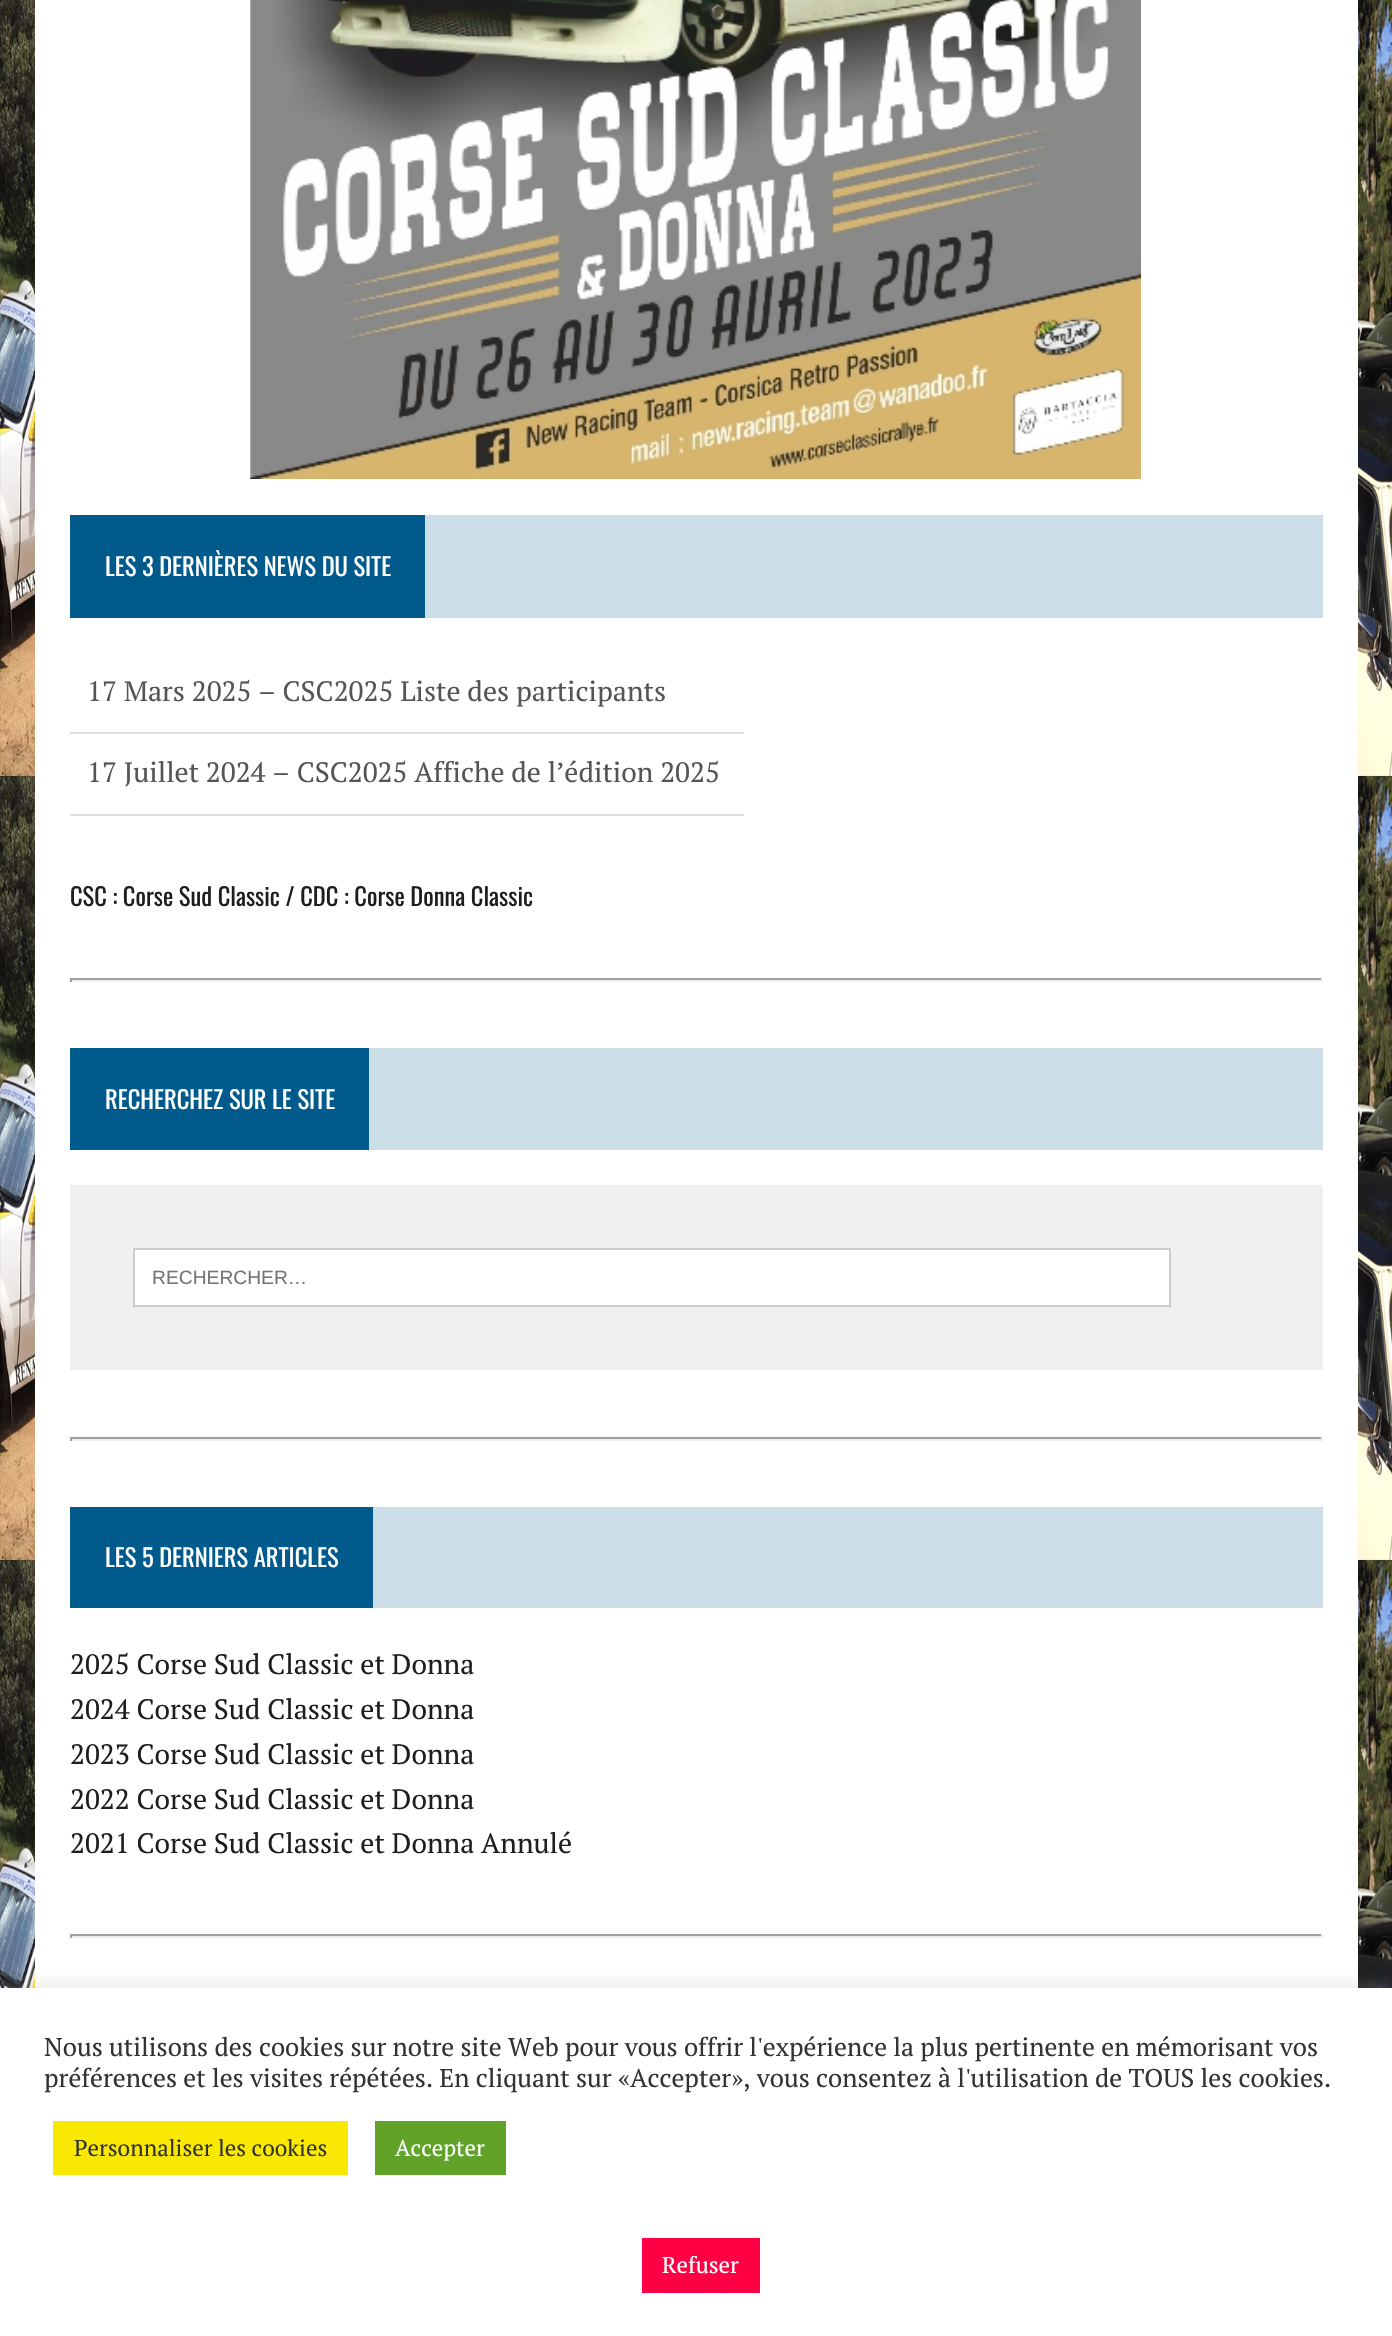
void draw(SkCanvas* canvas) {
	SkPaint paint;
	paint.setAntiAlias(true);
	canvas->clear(0xffffffff);
	canvas->drawImageRect(SkImages::DeferredFromEncodedData(SkData::MakeFromFileName("img1.png")), SkRect::MakeXYWH(0, 0, 1392, 1988), SkSamplingOptions());
	paint.setColor(0xffffffff);
	canvas->drawRect(SkRect::MakeXYWH(35, 0, 1323, 1988), paint);
	canvas->drawImageRect(SkImages::DeferredFromEncodedData(SkData::MakeFromFileName("img2.png")), SkRect::MakeXYWH(250, 0, 891, 479), SkSamplingOptions());
	paint.setColor(0xffccdee8);
	canvas->drawRect(SkRect::MakeXYWH(425, 515, 898, 103), paint);
	paint.setColor(0xff005a8c);
	canvas->drawRect(SkRect::MakeXYWH(70, 515, 355, 103), paint);
	SkFont f1(fontMgr->matchFamilyStyle("Oswald", SkFontStyle::Normal()), 24.5);
	f1.setSubpixel(true);
	paint.setColor(0xffffffff);
	canvas->drawString("LES 3 DERNIÈRES NEWS DU SITE", 105, 576, f1, paint);
	paint.setColor(0xffdddddd);
	canvas->drawRect(SkRect::MakeXYWH(70, 732, 674, 2), paint);
	SkFont f2(fontMgr->matchFamilyStyle("PT Serif", SkFontStyle::Normal()), 28);
	f2.setSubpixel(true);
	paint.setColor(0xff555555);
	canvas->drawString("17 Mars 2025 – CSC2025 Liste des participants", 87, 701, f2, paint);
	paint.setColor(0xffdddddd);
	canvas->drawRect(SkRect::MakeXYWH(70, 814, 674, 2), paint);
	paint.setColor(0xff555555);
	canvas->drawString("17 Juillet 2024 – CSC2025 Affiche de l’édition 2025", 87, 782, f2, paint);
	paint.setColor(0xff1f1e1e);
	canvas->drawString("CSC : Corse Sud Classic / CDC : Corse Donna Classic", 70, 906, f1, paint);
	paint.setColor(0xff9f9f9f);
	canvas->drawRect(SkRect::MakeXYWH(70, 978, 1253, 2), paint);
	paint.setColor(0xffeeeeee);
	canvas->drawRect(SkRect::MakeXYWH(1321, 978, 2, 4), paint);
	canvas->drawRect(SkRect::MakeXYWH(70, 980, 1253, 2), paint);
	paint.setColor(0xff9f9f9f);
	canvas->drawRect(SkRect::MakeXYWH(70, 978, 2, 4), paint);
	paint.setColor(0xffccdee8);
	canvas->drawRect(SkRect::MakeXYWH(369, 1048, 954, 102), paint);
	paint.setColor(0xff005a8c);
	canvas->drawRect(SkRect::MakeXYWH(70, 1048, 299, 102), paint);
	paint.setColor(0xffffffff);
	canvas->drawString("RECHERCHEZ SUR LE SITE", 105, 1109, f1, paint);
	paint.setColor(0xffefefef);
	canvas->drawRect(SkRect::MakeXYWH(70, 1185, 1253, 185), paint);
	paint.setColor(0xffffffff);
	canvas->drawRect(SkRect::MakeXYWH(134, 1249, 1036, 57), paint);
	paint.setStroke(true);
	paint.setStrokeWidth(2);
	paint.setColor(0xffcdcdcd);
	canvas->drawRect(SkRect::MakeXYWH(134, 1249, 1036, 57), paint);
	SkFont f3(fontMgr->matchFamilyStyle("Liberation Sans", SkFontStyle::Normal()), 19.25);
	f3.setSubpixel(true);
	paint.setStroke(false);
	paint.setColor(0xff757575);
	canvas->drawString("RECHERCHER…", 152, 1284, f3, paint);
	paint.setColor(0xff9f9f9f);
	canvas->drawRect(SkRect::MakeXYWH(70, 1437, 1253, 2), paint);
	paint.setColor(0xffeeeeee);
	canvas->drawRect(SkRect::MakeXYWH(1321, 1437, 2, 4), paint);
	canvas->drawRect(SkRect::MakeXYWH(70, 1439, 1253, 2), paint);
	paint.setColor(0xff9f9f9f);
	canvas->drawRect(SkRect::MakeXYWH(70, 1437, 2, 4), paint);
	paint.setColor(0xffccdee8);
	canvas->drawRect(SkRect::MakeXYWH(373, 1507, 950, 101), paint);
	paint.setColor(0xff005a8c);
	canvas->drawRect(SkRect::MakeXYWH(70, 1507, 303, 101), paint);
	paint.setColor(0xffffffff);
	canvas->drawString("LES 5 DERNIERS ARTICLES", 105, 1567, f1, paint);
	paint.setColor(0xff1f1e1e);
	canvas->drawString("2025 Corse Sud Classic et Donna", 70, 1674, f2, paint);
	canvas->drawString("2024 Corse Sud Classic et Donna", 70, 1719, f2, paint);
	canvas->drawString("2023 Corse Sud Classic et Donna", 70, 1764, f2, paint);
	canvas->drawString("2022 Corse Sud Classic et Donna", 70, 1809, f2, paint);
	canvas->drawString("2021 Corse Sud Classic et Donna Annulé", 70, 1853, f2, paint);
	paint.setColor(0xff9f9f9f);
	canvas->drawRect(SkRect::MakeXYWH(70, 1934, 1253, 2), paint);
	paint.setColor(0xffeeeeee);
	canvas->drawRect(SkRect::MakeXYWH(1321, 1934, 2, 4), paint);
	canvas->drawRect(SkRect::MakeXYWH(70, 1936, 1253, 2), paint);
	paint.setColor(0xff9f9f9f);
	canvas->drawRect(SkRect::MakeXYWH(70, 1934, 2, 4), paint);
	paint.setColor(0x4dacabab);
	paint.setMaskFilter(SkMaskFilter::MakeBlur(kNormal_SkBlurStyle, 9));
	canvas->drawRect(SkRect::MakeXYWH(0, 1986, 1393, 349), paint);
	paint.setMaskFilter(nullptr);
	paint.setColor(0xffffffff);
	canvas->drawRect(SkRect::MakeXYWH(0, 1988, 1392, 348), paint);
	SkFont f4(fontMgr->matchFamilyStyle("PT Serif", SkFontStyle::Normal()), 25.67);
	f4.setSubpixel(true);
	paint.setColor(0xff333333);
	canvas->drawString("Nous utilisons des cookies sur notre site Web pour vous offrir l'expérience la plus pertinente en mémorisant vos", 44, 2056, f4, paint);
	canvas->drawString("préférences et les visites répétées. En cliquant sur «Accepter», vous consentez à l'utilisation de TOUS les cookies.", 44, 2087, f4, paint);
	paint.setColor(0xfff9e902);
	canvas->drawRect(SkRect::MakeXYWH(53, 2121, 295, 54), paint);
	SkFont f5(fontMgr->matchFamilyStyle("PT Serif", SkFontStyle::Normal()), 22.75);
	f5.setSubpixel(true);
	paint.setColor(0xff333333);
	canvas->drawString("Personnaliser les cookies", 74, 2156, f5, paint);
	paint.setColor(0xff61a229);
	canvas->drawRect(SkRect::MakeXYWH(375, 2121, 131, 54), paint);
	paint.setColor(0xffffffff);
	canvas->drawString("Accepter", 395, 2156, f5, paint);
	paint.setColor(0xffff0044);
	canvas->drawRect(SkRect::MakeXYWH(642, 2238, 118, 55), paint);
	paint.setColor(0xffffffff);
	canvas->drawString("Refuser", 662, 2273, f5, paint);
}
